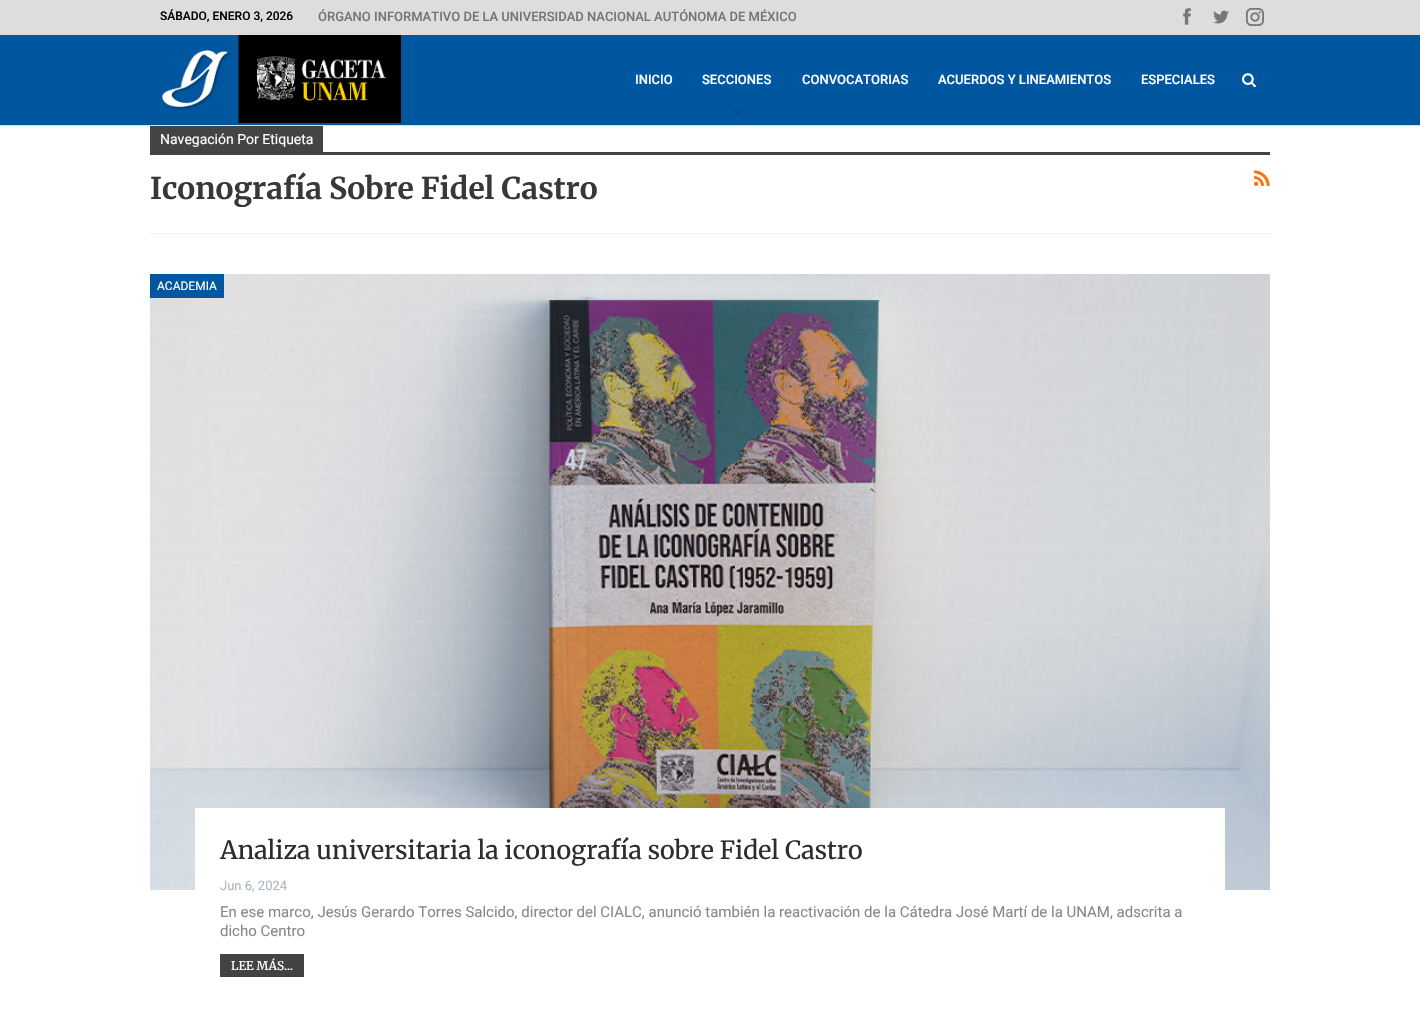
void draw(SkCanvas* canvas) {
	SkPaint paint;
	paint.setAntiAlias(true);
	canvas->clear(0xffffffff);
	paint.setColor(0xff00569f);
	canvas->drawRect(SkRect::MakeXYWH(0, 35, 1420, 90), paint);
	paint.setColor(0xffdedede);
	canvas->drawRect(SkRect::MakeXYWH(0, 125, 1420, 1), paint);
	paint.setColor(0xffdddddd);
	canvas->drawRect(SkRect::MakeXYWH(0, 0, 1420, 35), paint);
	SkFont f1(fontMgr->matchFamilyStyle("Roboto", SkFontStyle(500, SkFontStyle::kNormal_Width, SkFontStyle::kUpright_Slant)), 12);
	f1.setSubpixel(true);
	paint.setColor(0xff000000);
	canvas->drawString("SÁBADO, ENERO 3, 2026", 160, 20, f1, paint);
	SkFont f2(fontMgr->matchFamilyStyle("Roboto", SkFontStyle(500, SkFontStyle::kNormal_Width, SkFontStyle::kUpright_Slant)), 13);
	f2.setSubpixel(true);
	paint.setColor(0xff757575);
	canvas->drawString("ÓRGANO INFORMATIVO DE LA UNIVERSIDAD NACIONAL AUTÓNOMA DE MÉXICO", 318, 21, f2, paint);
	canvas->drawImageRect(SkImages::DeferredFromEncodedData(SkData::MakeFromFileName("img1.png")), SkRect::MakeXYWH(1183, 8, 8, 17), SkSamplingOptions());
	canvas->drawImageRect(SkImages::DeferredFromEncodedData(SkData::MakeFromFileName("img2.png")), SkRect::MakeXYWH(1213, 10, 16, 14), SkSamplingOptions());
	canvas->drawImageRect(SkImages::DeferredFromEncodedData(SkData::MakeFromFileName("img3.png")), SkRect::MakeXYWH(1246, 8, 18, 18), SkSamplingOptions());
	canvas->drawImageRect(SkImages::DeferredFromEncodedData(SkData::MakeFromFileName("img4.png")), SkRect::MakeXYWH(162, 35, 239, 88), SkSamplingOptions());
	paint.setColor(0xffffffff);
	canvas->drawString("INICIO", 635, 84, f2, paint);
	canvas->drawString("SECCIONES", 702, 84, f2, paint);
	canvas->drawImageRect(SkImages::DeferredFromEncodedData(SkData::MakeFromFileName("img5.png")), SkRect::MakeXYWH(733, 109, 8, 5), SkSamplingOptions());
	canvas->drawString("CONVOCATORIAS", 802, 84, f2, paint);
	canvas->drawString("ACUERDOS Y LINEAMIENTOS", 938, 84, f2, paint);
	canvas->drawString("ESPECIALES", 1141, 84, f2, paint);
	canvas->drawImageRect(SkImages::DeferredFromEncodedData(SkData::MakeFromFileName("img6.png")), SkRect::MakeXYWH(1242, 73, 14, 15), SkSamplingOptions());
	paint.setColor(0xfff0f0f0);
	canvas->drawRect(SkRect::MakeXYWH(150, 233, 1120, 1), paint);
	paint.setColor(0xff444444);
	canvas->drawRect(SkRect::MakeXYWH(150, 126, 173, 26), paint);
	SkFont f3(fontMgr->matchFamilyStyle("Roboto", SkFontStyle::Normal()), 14);
	f3.setSubpixel(true);
	paint.setColor(0xffffffff);
	canvas->drawString("Navegación Por Etiqueta", 160, 144, f3, paint);
	paint.setColor(0xff444444);
	canvas->drawRect(SkRect::MakeXYWH(150, 152, 1120, 3), paint);
	SkFont f4(fontMgr->matchFamilyStyle("Merriweather", SkFontStyle::Bold()), 30);
	f4.setSubpixel(true);
	paint.setColor(0xff383838);
	canvas->drawString("Iconografía Sobre Fidel Castro", 150, 199, f4, paint);
	canvas->drawImageRect(SkImages::DeferredFromEncodedData(SkData::MakeFromFileName("img7.png")), SkRect::MakeXYWH(1254, 170, 16, 16), SkSamplingOptions());
	canvas->drawImageRect(SkImages::DeferredFromEncodedData(SkData::MakeFromFileName("img8.png")), SkRect::MakeXYWH(150, 274, 1120, 616), SkSamplingOptions());
	paint.setColor(0xff00569f);
	canvas->drawRect(SkRect::MakeXYWH(150, 274, 74, 24), paint);
	SkFont f5(fontMgr->matchFamilyStyle("Roboto", SkFontStyle::Normal()), 12);
	f5.setSubpixel(true);
	paint.setColor(0xffffffff);
	canvas->drawString("ACADEMIA", 157, 290, f5, paint);
	canvas->drawRect(SkRect::MakeXYWH(195, 808, 1030, 82), paint);
	SkFont f6(fontMgr->matchFamilyStyle("Merriweather", SkFontStyle::Normal()), 25);
	f6.setSubpixel(true);
	paint.setColor(0xff2d2d2d);
	canvas->drawString("Analiza universitaria la iconografía sobre Fidel Castro", 220, 859, f6, paint);
	SkFont f7(fontMgr->matchFamilyStyle("Roboto", SkFontStyle::Normal()), 13);
	f7.setSubpixel(true);
	paint.setColor(0xffadb5bd);
	canvas->drawString("Jun 6, 2024", 220, 890, f7, paint);
	SkFont f8(fontMgr->matchFamilyStyle("Roboto", SkFontStyle::Normal()), 15);
	f8.setSubpixel(true);
	paint.setColor(0xff888888);
	canvas->drawString("En ese marco, Jesús Gerardo Torres Salcido, director del CIALC, anunció también la reactivación de la Cátedra José Martí de la UNAM, adscrita a", 220, 917, f8, paint);
	canvas->drawString("dicho Centro", 220, 936, f8, paint);
	paint.setColor(0xff434343);
	canvas->drawRect(SkRect::MakeXYWH(220, 954, 84, 23), paint);
	SkFont f9(fontMgr->matchFamilyStyle("Merriweather", SkFontStyle::Normal()), 12);
	f9.setSubpixel(true);
	paint.setColor(0xffffffff);
	canvas->drawString("LEE MÁS...", 231, 970, f9, paint);
}
